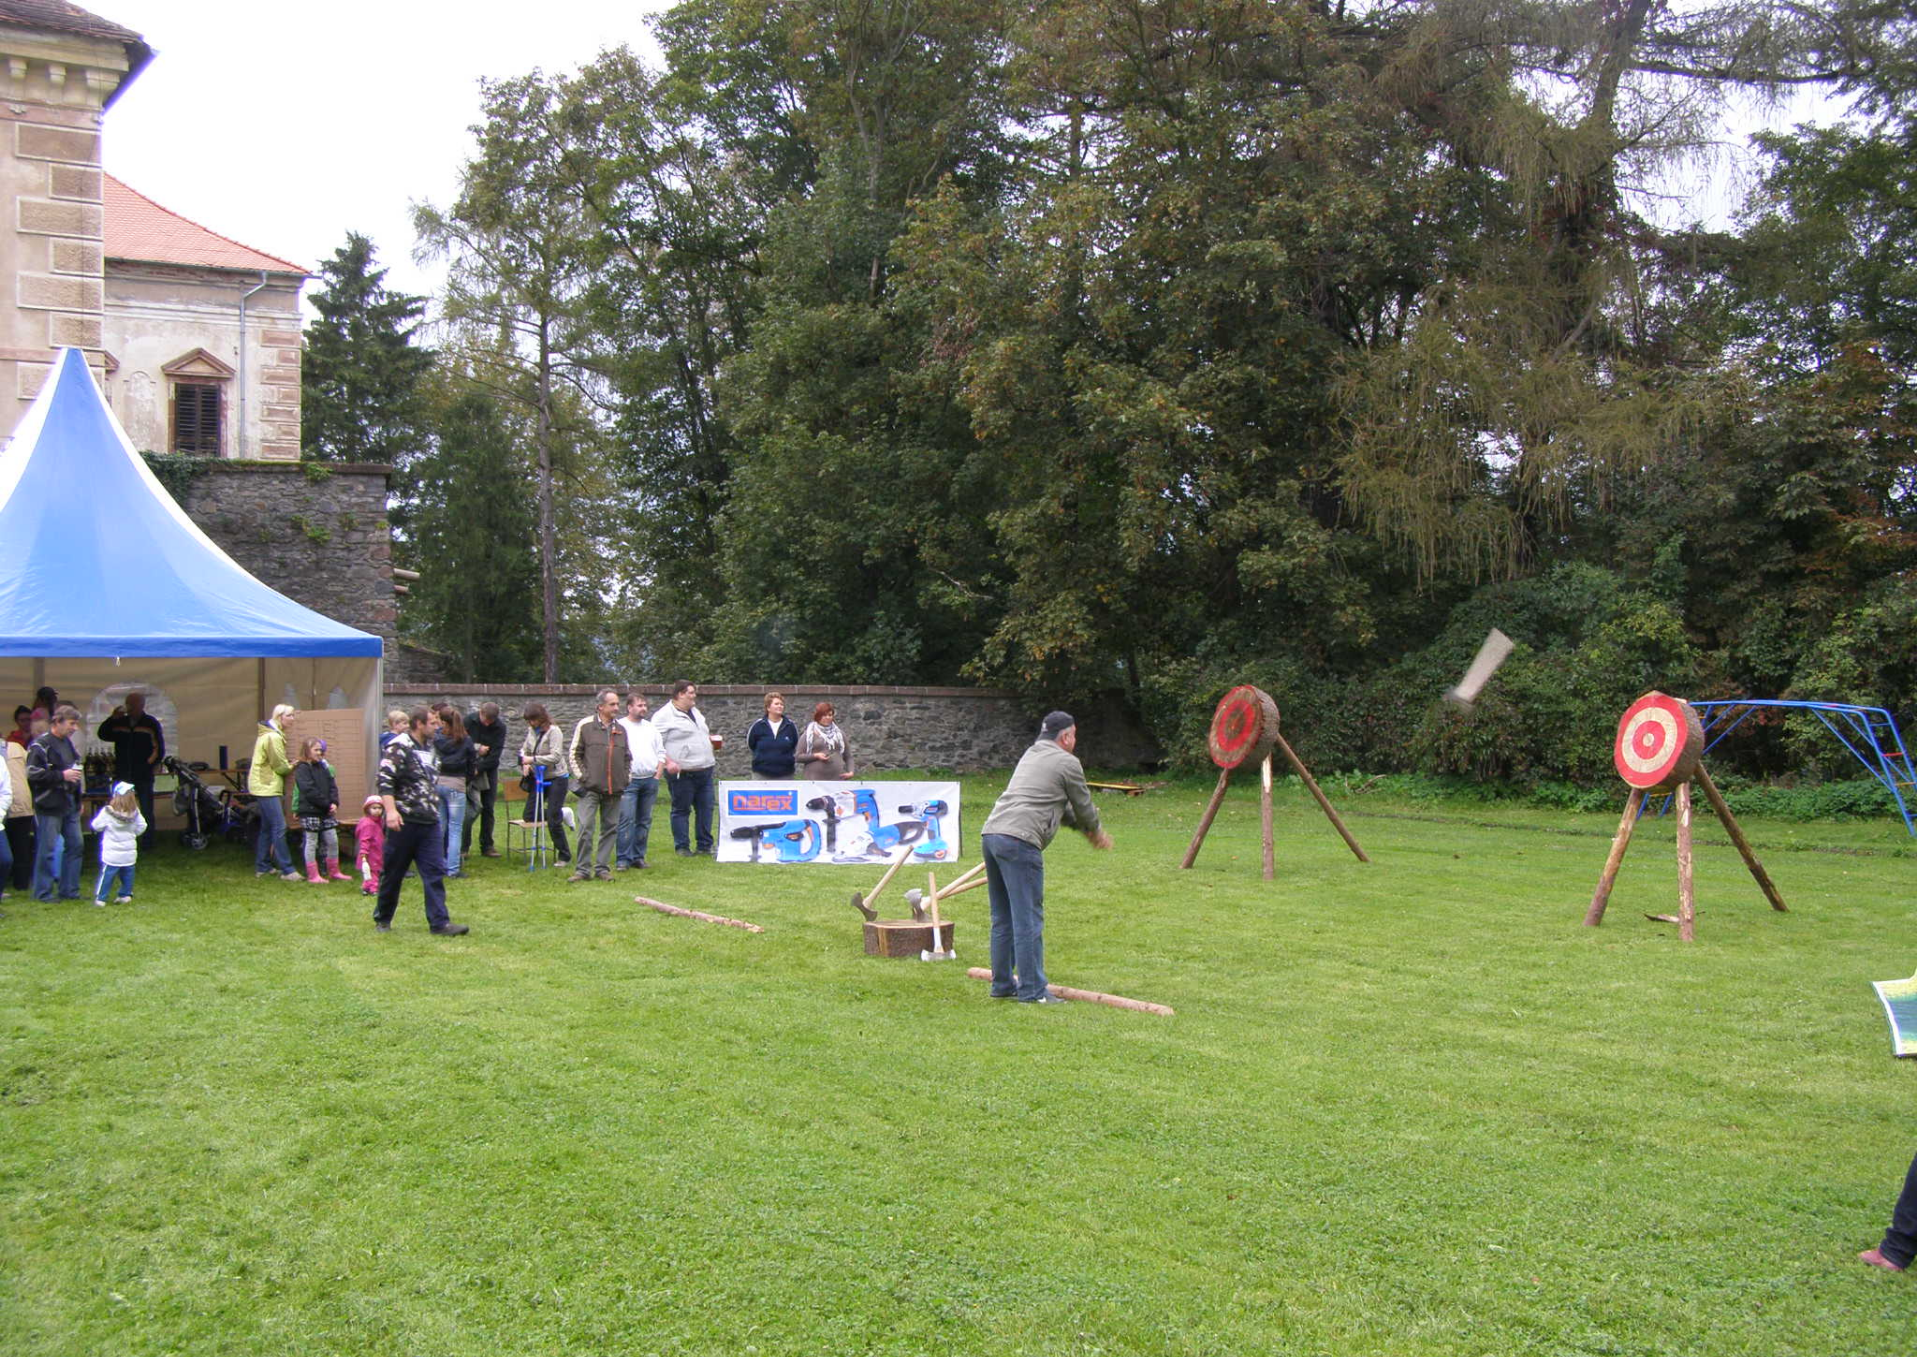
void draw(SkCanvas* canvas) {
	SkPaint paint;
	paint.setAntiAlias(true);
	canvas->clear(0xffffffff);
	canvas->drawImageRect(SkImages::DeferredFromEncodedData(SkData::MakeFromFileName("img1.png")), SkRect::MakeXYWH(0, 0, 1917, 1357), SkSamplingOptions());
}
